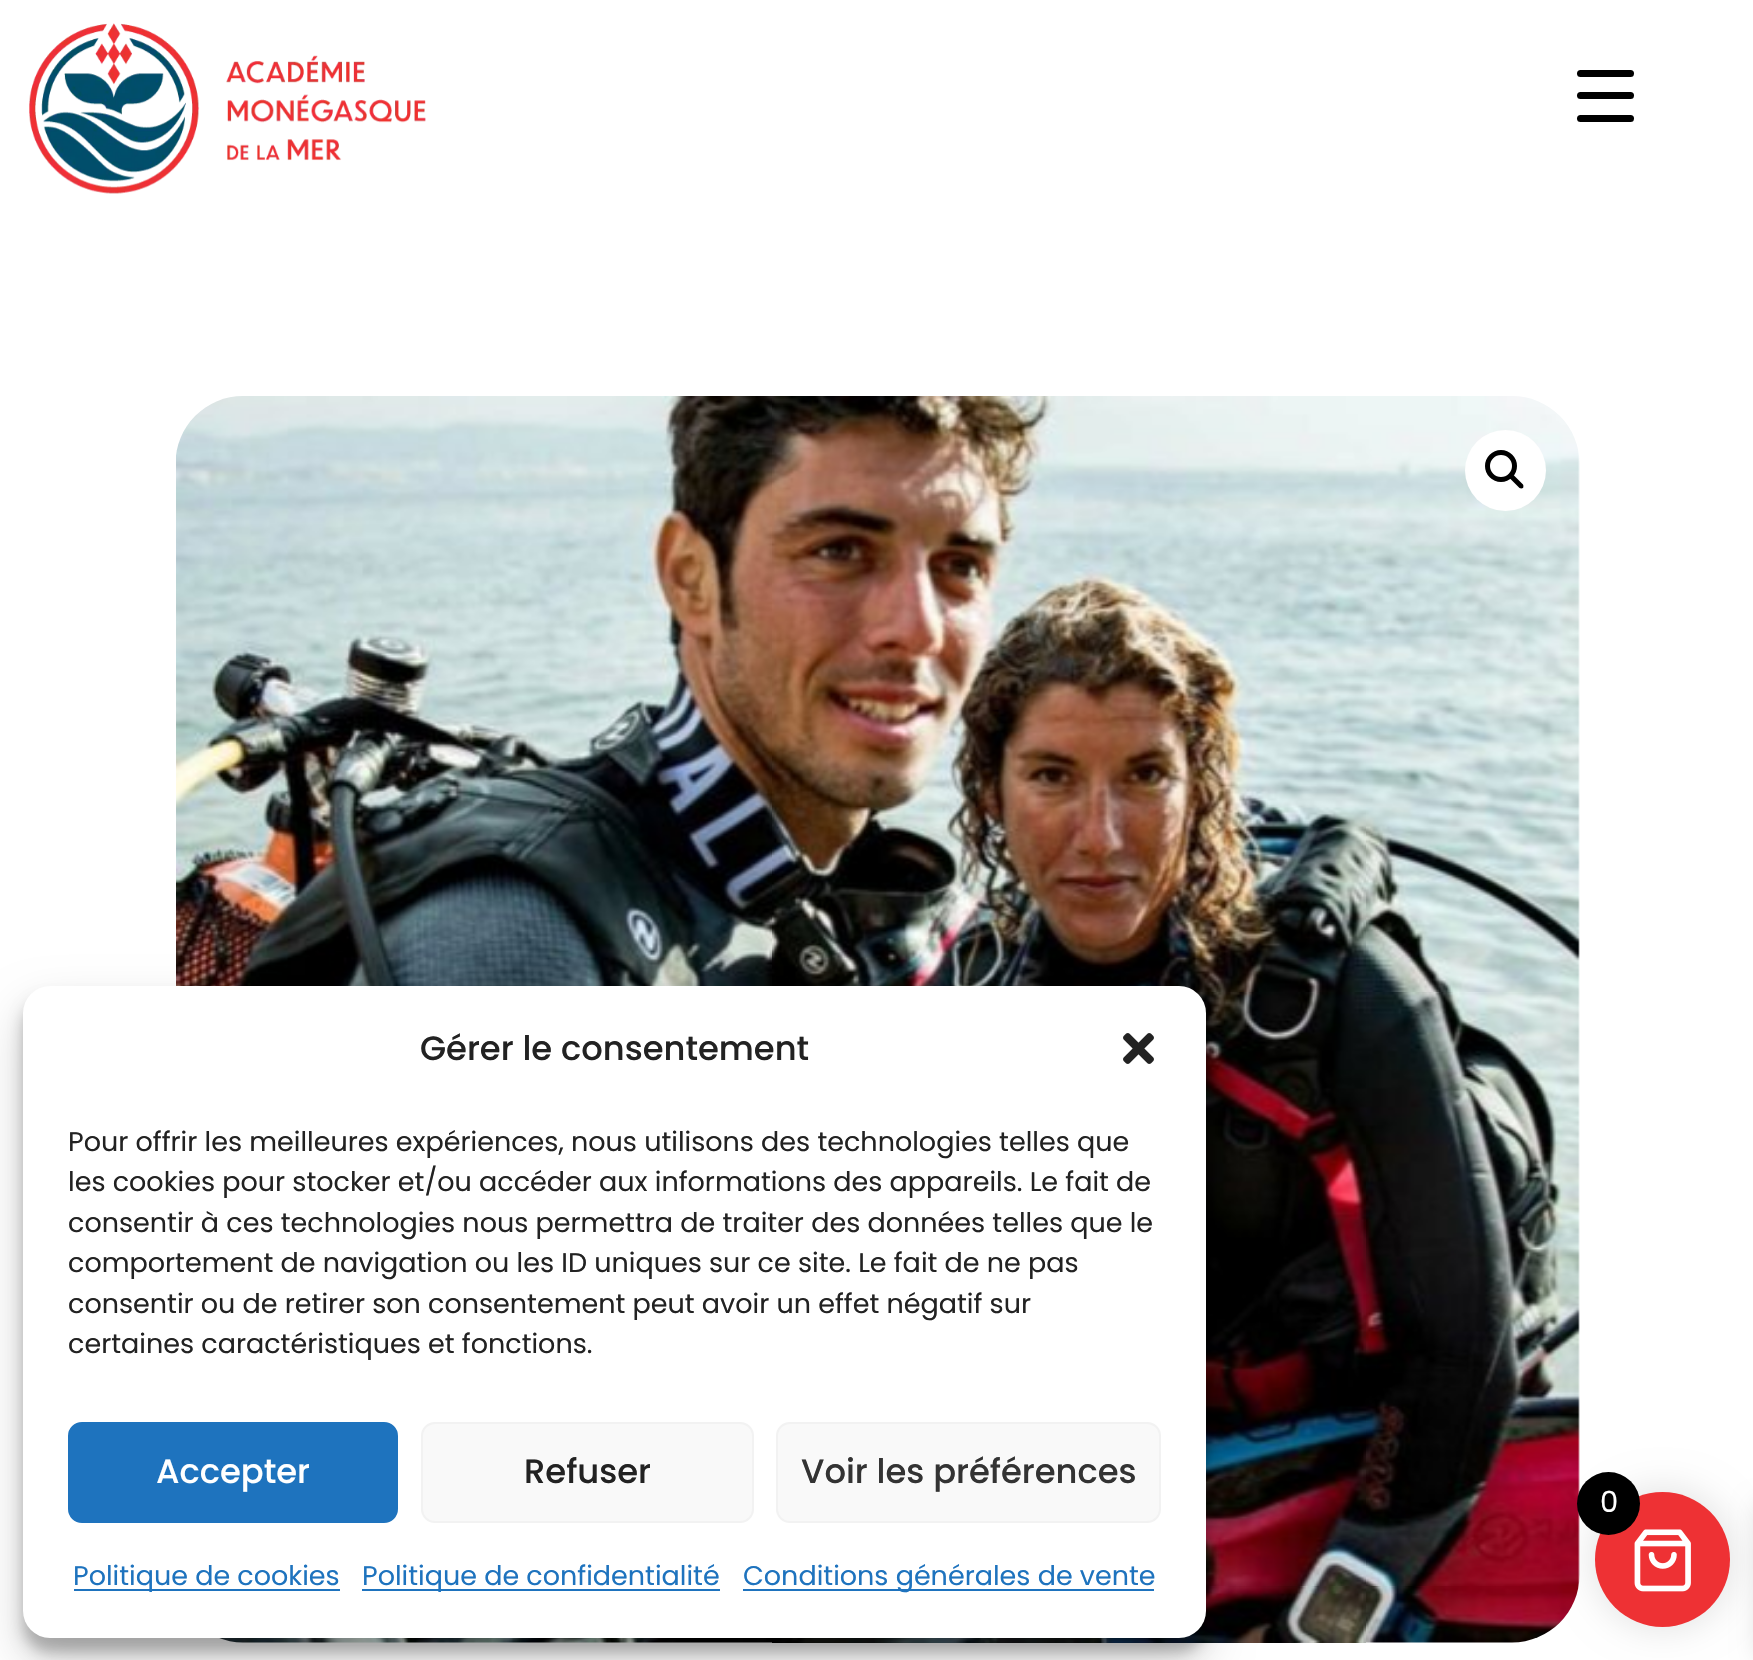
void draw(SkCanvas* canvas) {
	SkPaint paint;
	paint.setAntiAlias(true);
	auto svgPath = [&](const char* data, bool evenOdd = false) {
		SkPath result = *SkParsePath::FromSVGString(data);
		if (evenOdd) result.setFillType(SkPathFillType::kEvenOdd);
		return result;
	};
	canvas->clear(0xffffffff);
	canvas->drawImageRect(SkImages::DeferredFromEncodedData(SkData::MakeFromFileName("img1.png")), SkRect::MakeXYWH(29, 23, 397, 171), SkSamplingOptions());
	canvas->drawImageRect(SkImages::DeferredFromEncodedData(SkData::MakeFromFileName("img2.png")), SkRect::MakeXYWH(176, 396, 1404, 1247), SkSamplingOptions());
	paint.setColor(0xffffffff);
	canvas->drawCircle(1505.5, 470.5, 40.5, paint);
	paint.setStroke(true);
	paint.setStrokeWidth(5);
	paint.setColor(0xff000000);
	canvas->drawCircle(1501, 466, 13.5, paint);
	paint.setStroke(false);
	canvas->drawPath(svgPath("M1510 475C1511 474 1512.5 474 1513.5 475L1523 484.5C1523.5 485.5 1523.5 487 1523 488C1522 488.5 1520.5 488.5 1519.5 488L1510 478.5C1509.5 477.5 1509.5 476 1510 475Z"), paint);
	canvas->drawRoundRect(SkRect::MakeXYWH(1577, 92, 57, 7), 3.5, 3.5, paint);
	canvas->drawRoundRect(SkRect::MakeXYWH(1577, 70, 57, 7), 3.5, 3.5, paint);
	canvas->drawRoundRect(SkRect::MakeXYWH(1577, 115, 57, 7), 3.5, 3.5, paint);
	paint.setColor(0x3b000000);
	paint.setMaskFilter(SkMaskFilter::MakeBlur(kNormal_SkBlurStyle, 7));
	canvas->drawRoundRect(SkRect::MakeXYWH(23, 999, 1183, 653), 27, 27, paint);
	paint.setMaskFilter(nullptr);
	paint.setColor(0x30000000);
	paint.setMaskFilter(SkMaskFilter::MakeBlur(kNormal_SkBlurStyle, 22.5));
	canvas->drawRoundRect(SkRect::MakeXYWH(23, 1008, 1183, 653), 27, 27, paint);
	paint.setMaskFilter(nullptr);
	paint.setColor(0xffffffff);
	canvas->drawRoundRect(SkRect::MakeXYWH(23, 986, 1183, 652), 27, 27, paint);
	SkFont f1(fontMgr->matchFamilyStyle("Poppins", SkFontStyle(500, SkFontStyle::kNormal_Width, SkFontStyle::kUpright_Slant)), 33.75);
	f1.setSubpixel(true);
	paint.setColor(0xff222222);
	canvas->drawString("Gérer le consentement", 420, 1060, f1, paint);
	canvas->drawImageRect(SkImages::DeferredFromEncodedData(SkData::MakeFromFileName("img3.png")), SkRect::MakeXYWH(1123, 1033, 31, 31), SkSamplingOptions());
	SkFont f2(fontMgr->matchFamilyStyle("Poppins", SkFontStyle::Normal()), 27);
	f2.setSubpixel(true);
	canvas->drawString("Pour offrir les meilleures expériences, nous utilisons des technologies telles que", 68, 1151, f2, paint);
	canvas->drawString("les cookies pour stocker et/ou accéder aux informations des appareils. Le fait de", 68, 1191, f2, paint);
	canvas->drawString("consentir à ces technologies nous permettra de traiter des données telles que le", 68, 1232, f2, paint);
	canvas->drawString("comportement de navigation ou les ID uniques sur ce site. Le fait de ne pas", 68, 1272, f2, paint);
	canvas->drawString("consentir ou de retirer son consentement peut avoir un effet négatif sur", 68, 1313, f2, paint);
	canvas->drawString("certaines caractéristiques et fonctions.", 68, 1353, f2, paint);
	paint.setColor(0xff1e73be);
	canvas->drawRoundRect(SkRect::MakeXYWH(69, 1423, 328, 99), 13, 13, paint);
	paint.setStroke(true);
	paint.setStrokeWidth(2);
	canvas->drawRoundRect(SkRect::MakeXYWH(69, 1423, 328, 99), 13, 13, paint);
	paint.setStroke(false);
	paint.setColor(0xffffffff);
	canvas->drawString("Accepter", 156, 1483, f1, paint);
	paint.setColor(0xfff9f9f9);
	canvas->drawRoundRect(SkRect::MakeXYWH(422, 1423, 331, 99), 13, 13, paint);
	paint.setStroke(true);
	paint.setColor(0xfff2f2f2);
	canvas->drawRoundRect(SkRect::MakeXYWH(422, 1423, 331, 99), 13, 13, paint);
	paint.setStroke(false);
	paint.setColor(0xff222222);
	canvas->drawString("Refuser", 524, 1483, f1, paint);
	paint.setColor(0xfff9f9f9);
	canvas->drawRoundRect(SkRect::MakeXYWH(777, 1423, 383, 99), 13, 13, paint);
	paint.setStroke(true);
	paint.setColor(0xfff2f2f2);
	canvas->drawRoundRect(SkRect::MakeXYWH(777, 1423, 383, 99), 13, 13, paint);
	paint.setStroke(false);
	paint.setColor(0xff333333);
	canvas->drawString("Voir les préférences", 801, 1483, f1, paint);
	paint.setColor(0xff1e73be);
	canvas->drawRect(SkRect::MakeXYWH(74, 1589, 266, 2), paint);
	canvas->drawString("Politique de cookies", 73, 1585, f2, paint);
	canvas->drawRect(SkRect::MakeXYWH(362, 1589, 358, 2), paint);
	canvas->drawString("Politique de confidentialité", 362, 1585, f2, paint);
	canvas->drawRect(SkRect::MakeXYWH(743, 1589, 411, 2), paint);
	canvas->drawString("Conditions générales de vente", 743, 1585, f2, paint);
	paint.setColor(0x1a000000);
	paint.setMaskFilter(SkMaskFilter::MakeBlur(kNormal_SkBlurStyle, 17));
	canvas->drawRoundRect(SkRect::MakeXYWH(1591, 1487, 144, 144), 72, 72, paint);
	paint.setMaskFilter(nullptr);
	paint.setMaskFilter(SkMaskFilter::MakeBlur(kNormal_SkBlurStyle, 11));
	canvas->drawRect(SkRect::MakeXYWH(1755, 1503, 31, 155), paint);
	paint.setMaskFilter(nullptr);
	paint.setColor(0xffee3134);
	canvas->drawCircle(1662.5, 1559.5, 67.5, paint);
	canvas->drawImageRect(SkImages::DeferredFromEncodedData(SkData::MakeFromFileName("img4.png")), SkRect::MakeXYWH(1634, 1529, 57, 63), SkSamplingOptions());
	paint.setColor(0xff000000);
	canvas->drawCircle(1608.5, 1503.5, 31.5, paint);
	SkFont f3(fontMgr->matchFamilyStyle("Poppins", SkFontStyle::Normal()), 29);
	f3.setSubpixel(true);
	paint.setColor(0xffffffff);
	canvas->drawString("0", 1600, 1512, f3, paint);
}
